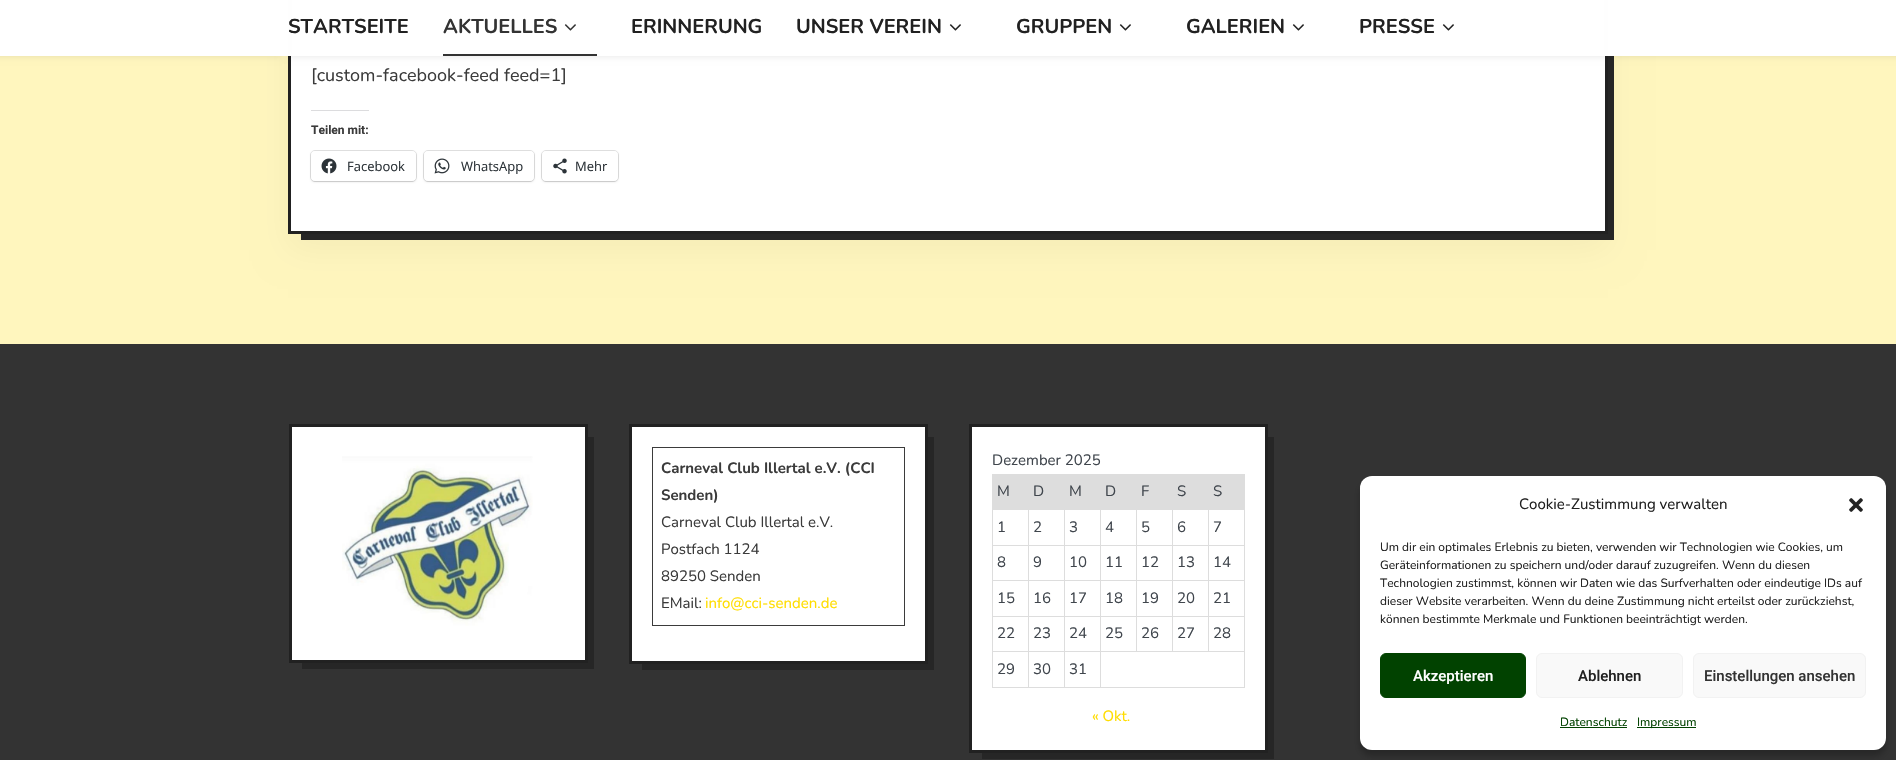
void draw(SkCanvas* canvas) {
	SkPaint paint;
	paint.setAntiAlias(true);
	canvas->clear(0xfffff6be);
	paint.setColor(0x0a000000);
	paint.setMaskFilter(SkMaskFilter::MakeBlur(kNormal_SkBlurStyle, 16));
	canvas->drawRect(SkRect::MakeXYWH(288, 22, 1320, 228), paint);
	paint.setMaskFilter(nullptr);
	paint.setColor(0xffffffff);
	canvas->drawRect(SkRect::MakeXYWH(291, 56, 1314, 175), paint);
	paint.setStroke(true);
	paint.setStrokeWidth(3);
	paint.setColor(0xff212121);
	canvas->drawRect(SkRect::MakeXYWH(289.5, 7.5, 1317, 225), paint);
	paint.setStroke(false);
	paint.setColor(0xff262626);
	canvas->drawRect(SkRect::MakeXYWH(1608, 56, 6, 184), paint);
	paint.setColor(0x1a000000);
	paint.setMaskFilter(SkMaskFilter::MakeBlur(kNormal_SkBlurStyle, 3.5));
	canvas->drawRect(SkRect::MakeXYWH(288, 0, 1320, 56), paint);
	paint.setMaskFilter(nullptr);
	paint.setColor(0xffffffff);
	canvas->drawRect(SkRect::MakeXYWH(288, 0, 1320, 56), paint);
	paint.setColor(0x1a000000);
	paint.setMaskFilter(SkMaskFilter::MakeBlur(kNormal_SkBlurStyle, 3.5));
	canvas->drawRect(SkRect::MakeXYWH(-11, 0, 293, 56), paint);
	paint.setMaskFilter(nullptr);
	paint.setColor(0xffffffff);
	canvas->drawRect(SkRect::MakeXYWH(0, 0, 288, 56), paint);
	SkFont f1(fontMgr->matchFamilyStyle("Nunito", SkFontStyle::Bold()), 20);
	f1.setSubpixel(true);
	paint.setColor(0xff212121);
	canvas->drawString("STARTSEITE", 288, 33, f1, paint);
	paint.setColor(0xff333333);
	canvas->drawRect(SkRect::MakeXYWH(443, 54, 154, 2), paint);
	canvas->drawString("AKTUELLES", 443, 33, f1, paint);
	canvas->drawImageRect(SkImages::DeferredFromEncodedData(SkData::MakeFromFileName("img1.png")), SkRect::MakeXYWH(564, 24, 12, 7), SkSamplingOptions());
	paint.setColor(0xff212121);
	canvas->drawString("ERINNERUNG", 631, 33, f1, paint);
	canvas->drawString("UNSER VEREIN", 796, 33, f1, paint);
	canvas->drawImageRect(SkImages::DeferredFromEncodedData(SkData::MakeFromFileName("img2.png")), SkRect::MakeXYWH(949, 24, 12, 7), SkSamplingOptions());
	canvas->drawString("GRUPPEN", 1016, 33, f1, paint);
	canvas->drawImageRect(SkImages::DeferredFromEncodedData(SkData::MakeFromFileName("img2.png")), SkRect::MakeXYWH(1119, 24, 12, 7), SkSamplingOptions());
	canvas->drawString("GALERIEN", 1186, 33, f1, paint);
	canvas->drawImageRect(SkImages::DeferredFromEncodedData(SkData::MakeFromFileName("img2.png")), SkRect::MakeXYWH(1292, 24, 12, 7), SkSamplingOptions());
	canvas->drawString("PRESSE", 1359, 33, f1, paint);
	canvas->drawImageRect(SkImages::DeferredFromEncodedData(SkData::MakeFromFileName("img2.png")), SkRect::MakeXYWH(1442, 24, 12, 7), SkSamplingOptions());
	paint.setColor(0x1a000000);
	paint.setMaskFilter(SkMaskFilter::MakeBlur(kNormal_SkBlurStyle, 3.5));
	canvas->drawRect(SkRect::MakeXYWH(1614, 0, 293, 56), paint);
	paint.setMaskFilter(nullptr);
	paint.setColor(0xffffffff);
	canvas->drawRect(SkRect::MakeXYWH(1608, 0, 288, 56), paint);
	paint.setColor(0xff262626);
	canvas->drawRect(SkRect::MakeXYWH(301, 234, 1313, 6), paint);
	SkFont f2(fontMgr->matchFamilyStyle("Nunito", SkFontStyle::Normal()), 18);
	f2.setSubpixel(true);
	paint.setColor(0xff3b3b3b);
	canvas->drawString("[custom-facebook-feed feed=1]", 311, 81, f2, paint);
	paint.setColor(0xffdcdcde);
	canvas->drawRect(SkRect::MakeXYWH(311, 110, 58, 1), paint);
	SkFont f3(fontMgr->matchFamilyStyle("Heebo", SkFontStyle::Bold()), 12);
	f3.setSubpixel(true);
	paint.setColor(0xff3b3b3b);
	canvas->drawString("Teilen mit:", 311, 134, f3, paint);
	paint.setStroke(true);
	paint.setStrokeWidth(1);
	paint.setColor(0xffe0e0e0);
	canvas->drawRoundRect(SkRect::MakeXYWH(310.5, 150.5, 106, 31), 4.5, 4.5, paint);
	paint.setStroke(false);
	paint.setColor(0x1f000000);
	paint.setMaskFilter(SkMaskFilter::MakeBlur(kNormal_SkBlurStyle, 1));
	canvas->drawRoundRect(SkRect::MakeXYWH(311, 152, 105, 30), 4, 4, paint);
	paint.setMaskFilter(nullptr);
	paint.setColor(0xffffffff);
	canvas->drawRoundRect(SkRect::MakeXYWH(311, 151, 105, 30), 4, 4, paint);
	canvas->drawImageRect(SkImages::DeferredFromEncodedData(SkData::MakeFromFileName("img3.png")), SkRect::MakeXYWH(321, 158, 16, 16), SkSamplingOptions());
	SkFont f4(fontMgr->matchFamilyStyle("Open Sans", SkFontStyle::Normal()), 13);
	f4.setSubpixel(true);
	paint.setColor(0xff2c3338);
	canvas->drawString("Facebook", 347, 171, f4, paint);
	paint.setStroke(true);
	paint.setColor(0xffe0e0e0);
	canvas->drawRoundRect(SkRect::MakeXYWH(423.5, 150.5, 111, 31), 4.5, 4.5, paint);
	paint.setStroke(false);
	paint.setColor(0x1f000000);
	paint.setMaskFilter(SkMaskFilter::MakeBlur(kNormal_SkBlurStyle, 1));
	canvas->drawRoundRect(SkRect::MakeXYWH(424, 152, 110, 30), 4, 4, paint);
	paint.setMaskFilter(nullptr);
	paint.setColor(0xffffffff);
	canvas->drawRoundRect(SkRect::MakeXYWH(424, 151, 110, 30), 4, 4, paint);
	canvas->drawImageRect(SkImages::DeferredFromEncodedData(SkData::MakeFromFileName("img4.png")), SkRect::MakeXYWH(434, 158, 16, 16), SkSamplingOptions());
	paint.setColor(0xff2c3338);
	canvas->drawString("WhatsApp", 461, 171, f4, paint);
	paint.setStroke(true);
	paint.setColor(0xffe0e0e0);
	canvas->drawRoundRect(SkRect::MakeXYWH(541.5, 150.5, 77, 31), 4.5, 4.5, paint);
	paint.setStroke(false);
	paint.setColor(0x1f000000);
	paint.setMaskFilter(SkMaskFilter::MakeBlur(kNormal_SkBlurStyle, 1));
	canvas->drawRoundRect(SkRect::MakeXYWH(542, 152, 76, 30), 4, 4, paint);
	paint.setMaskFilter(nullptr);
	paint.setColor(0xffffffff);
	canvas->drawRoundRect(SkRect::MakeXYWH(542, 151, 76, 30), 4, 4, paint);
	canvas->drawImageRect(SkImages::DeferredFromEncodedData(SkData::MakeFromFileName("img5.png")), SkRect::MakeXYWH(553, 158, 14, 16), SkSamplingOptions());
	paint.setColor(0xff2c3338);
	canvas->drawString("Mehr", 575, 171, f4, paint);
	paint.setColor(0xff333333);
	canvas->drawRect(SkRect::MakeXYWH(0, 344, 1896, 416), paint);
	paint.setColor(0xffffffff);
	canvas->drawRect(SkRect::MakeXYWH(290.5, 425.5, 296, 236), paint);
	paint.setStroke(true);
	paint.setStrokeWidth(3);
	paint.setColor(0xff212121);
	canvas->drawRect(SkRect::MakeXYWH(290.5, 425.5, 296, 236), paint);
	paint.setStroke(false);
	paint.setColor(0xff262626);
	canvas->drawRect(SkRect::MakeXYWH(588, 437, 6, 232), paint);
	canvas->drawRect(SkRect::MakeXYWH(302, 663, 292, 6), paint);
	canvas->drawImageRect(SkImages::DeferredFromEncodedData(SkData::MakeFromFileName("img6.png")), SkRect::MakeXYWH(342, 456, 191, 170), SkSamplingOptions());
	paint.setColor(0xffffffff);
	canvas->drawRect(SkRect::MakeXYWH(630.5, 425.5, 296, 237), paint);
	paint.setStroke(true);
	paint.setColor(0xff212121);
	canvas->drawRect(SkRect::MakeXYWH(630.5, 425.5, 296, 237), paint);
	paint.setStroke(false);
	paint.setColor(0xff262626);
	canvas->drawRect(SkRect::MakeXYWH(928, 437, 6, 233), paint);
	canvas->drawRect(SkRect::MakeXYWH(642, 664, 292, 6), paint);
	paint.setColor(0xff3b3b3b);
	canvas->drawRect(SkRect::MakeXYWH(652, 447, 253, 1), paint);
	canvas->drawRect(SkRect::MakeXYWH(904, 447, 1, 179), paint);
	canvas->drawRect(SkRect::MakeXYWH(652, 625, 253, 1), paint);
	canvas->drawRect(SkRect::MakeXYWH(652, 447, 1, 179), paint);
	SkFont f5(fontMgr->matchFamilyStyle("Nunito", SkFontStyle::Bold()), 15);
	f5.setSubpixel(true);
	canvas->drawString("Carneval Club Illertal e.V. (CCI", 661, 473, f5, paint);
	canvas->drawString("Senden)", 661, 500, f5, paint);
	SkFont f6(fontMgr->matchFamilyStyle("Nunito", SkFontStyle::Normal()), 15);
	f6.setSubpixel(true);
	canvas->drawString("Carneval Club Illertal e.V.", 661, 527, f6, paint);
	canvas->drawString("Postfach 1124", 661, 554, f6, paint);
	canvas->drawString("89250 Senden", 661, 581, f6, paint);
	canvas->drawString("EMail:", 661, 608, f6, paint);
	paint.setColor(0xffffdd00);
	canvas->drawString("info@cci-senden.de", 705, 608, f6, paint);
	paint.setColor(0xffffffff);
	canvas->drawRect(SkRect::MakeXYWH(970.5, 425.5, 296, 326), paint);
	paint.setStroke(true);
	paint.setColor(0xff212121);
	canvas->drawRect(SkRect::MakeXYWH(970.5, 425.5, 296, 326), paint);
	paint.setStroke(false);
	paint.setColor(0xff262626);
	canvas->drawRect(SkRect::MakeXYWH(1268, 437, 6, 322), paint);
	canvas->drawRect(SkRect::MakeXYWH(982, 753, 292, 6), paint);
	paint.setColor(0xff40464d);
	canvas->drawString("Dezember 2025", 992, 465, f6, paint);
	paint.setColor(0xffdddddd);
	canvas->drawRect(SkRect::MakeXYWH(992, 474, 253, 36), paint);
	paint.setColor(0xff40464d);
	canvas->drawString("M", 997, 496, f6, paint);
	canvas->drawString("D", 1033, 496, f6, paint);
	canvas->drawString("M", 1069, 496, f6, paint);
	canvas->drawString("D", 1105, 496, f6, paint);
	canvas->drawString("F", 1141, 496, f6, paint);
	canvas->drawString("S", 1177, 496, f6, paint);
	canvas->drawString("S", 1213, 496, f6, paint);
	canvas->drawString("1", 997, 532, f6, paint);
	paint.setColor(0xffdddddd);
	canvas->drawRect(SkRect::MakeXYWH(1208, 545, 37, 1), paint);
	canvas->drawRect(SkRect::MakeXYWH(1208, 580, 37, 1), paint);
	canvas->drawRect(SkRect::MakeXYWH(1208, 616, 37, 1), paint);
	canvas->drawRect(SkRect::MakeXYWH(1100, 651, 145, 1), paint);
	canvas->drawRect(SkRect::MakeXYWH(1208, 616, 1, 36), paint);
	canvas->drawRect(SkRect::MakeXYWH(1172, 616, 37, 1), paint);
	canvas->drawRect(SkRect::MakeXYWH(1208, 580, 1, 37), paint);
	canvas->drawRect(SkRect::MakeXYWH(1172, 580, 37, 1), paint);
	canvas->drawRect(SkRect::MakeXYWH(1208, 545, 1, 36), paint);
	canvas->drawRect(SkRect::MakeXYWH(1172, 545, 37, 1), paint);
	canvas->drawRect(SkRect::MakeXYWH(1172, 616, 1, 36), paint);
	canvas->drawRect(SkRect::MakeXYWH(1136, 616, 37, 1), paint);
	canvas->drawRect(SkRect::MakeXYWH(1172, 580, 1, 37), paint);
	canvas->drawRect(SkRect::MakeXYWH(1136, 580, 37, 1), paint);
	canvas->drawRect(SkRect::MakeXYWH(1172, 545, 1, 36), paint);
	canvas->drawRect(SkRect::MakeXYWH(1136, 545, 37, 1), paint);
	canvas->drawRect(SkRect::MakeXYWH(1136, 616, 1, 36), paint);
	canvas->drawRect(SkRect::MakeXYWH(1100, 616, 37, 1), paint);
	canvas->drawRect(SkRect::MakeXYWH(1136, 580, 1, 37), paint);
	canvas->drawRect(SkRect::MakeXYWH(1100, 580, 37, 1), paint);
	canvas->drawRect(SkRect::MakeXYWH(1136, 545, 1, 36), paint);
	canvas->drawRect(SkRect::MakeXYWH(1100, 545, 37, 1), paint);
	canvas->drawRect(SkRect::MakeXYWH(1244, 651, 1, 37), paint);
	canvas->drawRect(SkRect::MakeXYWH(1100, 687, 145, 1), paint);
	canvas->drawRect(SkRect::MakeXYWH(1100, 651, 1, 37), paint);
	canvas->drawRect(SkRect::MakeXYWH(1064, 651, 37, 1), paint);
	canvas->drawRect(SkRect::MakeXYWH(1100, 616, 1, 36), paint);
	canvas->drawRect(SkRect::MakeXYWH(1064, 616, 37, 1), paint);
	canvas->drawRect(SkRect::MakeXYWH(1100, 580, 1, 37), paint);
	canvas->drawRect(SkRect::MakeXYWH(1064, 580, 37, 1), paint);
	canvas->drawRect(SkRect::MakeXYWH(1100, 545, 1, 36), paint);
	canvas->drawRect(SkRect::MakeXYWH(1064, 545, 37, 1), paint);
	canvas->drawRect(SkRect::MakeXYWH(1064, 687, 37, 1), paint);
	canvas->drawRect(SkRect::MakeXYWH(1064, 651, 1, 37), paint);
	canvas->drawRect(SkRect::MakeXYWH(1028, 651, 37, 1), paint);
	canvas->drawRect(SkRect::MakeXYWH(1064, 616, 1, 36), paint);
	canvas->drawRect(SkRect::MakeXYWH(1028, 616, 37, 1), paint);
	canvas->drawRect(SkRect::MakeXYWH(1064, 580, 1, 37), paint);
	canvas->drawRect(SkRect::MakeXYWH(1028, 580, 37, 1), paint);
	canvas->drawRect(SkRect::MakeXYWH(1064, 545, 1, 36), paint);
	canvas->drawRect(SkRect::MakeXYWH(1028, 545, 37, 1), paint);
	canvas->drawRect(SkRect::MakeXYWH(1028, 687, 37, 1), paint);
	canvas->drawRect(SkRect::MakeXYWH(1028, 651, 1, 37), paint);
	canvas->drawRect(SkRect::MakeXYWH(992, 651, 37, 1), paint);
	canvas->drawRect(SkRect::MakeXYWH(1028, 616, 1, 36), paint);
	canvas->drawRect(SkRect::MakeXYWH(992, 616, 37, 1), paint);
	canvas->drawRect(SkRect::MakeXYWH(1028, 580, 1, 37), paint);
	canvas->drawRect(SkRect::MakeXYWH(992, 580, 37, 1), paint);
	canvas->drawRect(SkRect::MakeXYWH(1028, 545, 1, 36), paint);
	canvas->drawRect(SkRect::MakeXYWH(992, 545, 37, 1), paint);
	canvas->drawRect(SkRect::MakeXYWH(1028, 509, 1, 37), paint);
	paint.setColor(0xff40464d);
	canvas->drawString("2", 1033, 532, f6, paint);
	paint.setColor(0xffdddddd);
	canvas->drawRect(SkRect::MakeXYWH(1064, 509, 1, 37), paint);
	paint.setColor(0xff40464d);
	canvas->drawString("3", 1069, 532, f6, paint);
	paint.setColor(0xffdddddd);
	canvas->drawRect(SkRect::MakeXYWH(1100, 509, 1, 37), paint);
	paint.setColor(0xff40464d);
	canvas->drawString("4", 1105, 532, f6, paint);
	paint.setColor(0xffdddddd);
	canvas->drawRect(SkRect::MakeXYWH(1136, 509, 1, 37), paint);
	paint.setColor(0xff40464d);
	canvas->drawString("5", 1141, 532, f6, paint);
	paint.setColor(0xffdddddd);
	canvas->drawRect(SkRect::MakeXYWH(1172, 509, 1, 37), paint);
	paint.setColor(0xff40464d);
	canvas->drawString("6", 1177, 532, f6, paint);
	paint.setColor(0xffdddddd);
	canvas->drawRect(SkRect::MakeXYWH(1208, 509, 1, 37), paint);
	paint.setColor(0xff40464d);
	canvas->drawString("7", 1213, 532, f6, paint);
	paint.setColor(0xffdddddd);
	canvas->drawRect(SkRect::MakeXYWH(992, 687, 37, 1), paint);
	canvas->drawRect(SkRect::MakeXYWH(992, 651, 1, 37), paint);
	canvas->drawRect(SkRect::MakeXYWH(992, 616, 1, 36), paint);
	canvas->drawRect(SkRect::MakeXYWH(992, 580, 1, 37), paint);
	canvas->drawRect(SkRect::MakeXYWH(992, 509, 1, 72), paint);
	paint.setColor(0xff40464d);
	canvas->drawString("8", 997, 567, f6, paint);
	canvas->drawString("9", 1033, 567, f6, paint);
	canvas->drawString("10", 1069, 567, f6, paint);
	canvas->drawString("11", 1105, 567, f6, paint);
	canvas->drawString("12", 1141, 567, f6, paint);
	canvas->drawString("13", 1177, 567, f6, paint);
	paint.setColor(0xffdddddd);
	canvas->drawRect(SkRect::MakeXYWH(1244, 616, 1, 36), paint);
	canvas->drawRect(SkRect::MakeXYWH(1244, 580, 1, 37), paint);
	canvas->drawRect(SkRect::MakeXYWH(1244, 509, 1, 72), paint);
	paint.setColor(0xff40464d);
	canvas->drawString("14", 1213, 567, f6, paint);
	canvas->drawString("15", 997, 603, f6, paint);
	canvas->drawString("16", 1033, 603, f6, paint);
	canvas->drawString("17", 1069, 603, f6, paint);
	canvas->drawString("18", 1105, 603, f6, paint);
	canvas->drawString("19", 1141, 603, f6, paint);
	canvas->drawString("20", 1177, 603, f6, paint);
	canvas->drawString("21", 1213, 603, f6, paint);
	canvas->drawString("22", 997, 638, f6, paint);
	canvas->drawString("23", 1033, 638, f6, paint);
	canvas->drawString("24", 1069, 638, f6, paint);
	canvas->drawString("25", 1105, 638, f6, paint);
	canvas->drawString("26", 1141, 638, f6, paint);
	canvas->drawString("27", 1177, 638, f6, paint);
	canvas->drawString("28", 1213, 638, f6, paint);
	canvas->drawString("29", 997, 674, f6, paint);
	canvas->drawString("30", 1033, 674, f6, paint);
	canvas->drawString("31", 1069, 674, f6, paint);
	paint.setColor(0xffffdd00);
	canvas->drawString("« Okt.", 1092, 721, f6, paint);
	paint.setColor(0x3b000000);
	paint.setMaskFilter(SkMaskFilter::MakeBlur(kNormal_SkBlurStyle, 3));
	canvas->drawRoundRect(SkRect::MakeXYWH(1360, 482, 526, 274), 12, 12, paint);
	paint.setMaskFilter(nullptr);
	paint.setColor(0xffffffff);
	canvas->drawRoundRect(SkRect::MakeXYWH(1360, 476, 526, 274), 12, 12, paint);
	paint.setColor(0xff212121);
	canvas->drawString("Cookie-Zustimmung verwalten", 1519, 509, f6, paint);
	canvas->drawImageRect(SkImages::DeferredFromEncodedData(SkData::MakeFromFileName("img7.png")), SkRect::MakeXYWH(1849, 498, 14, 14), SkSamplingOptions());
	SkFont f7(fontMgr->matchFamilyStyle("Nunito", SkFontStyle::Normal()), 12);
	f7.setSubpixel(true);
	canvas->drawString("Um dir ein optimales Erlebnis zu bieten, verwenden wir Technologien wie Cookies, um", 1380, 551, f7, paint);
	canvas->drawString("Geräteinformationen zu speichern und/oder darauf zuzugreifen. Wenn du diesen", 1380, 569, f7, paint);
	canvas->drawString("Technologien zustimmst, können wir Daten wie das Surfverhalten oder eindeutige IDs auf", 1380, 587, f7, paint);
	canvas->drawString("dieser Website verarbeiten. Wenn du deine Zustimmung nicht erteilst oder zurückziehst,", 1380, 605, f7, paint);
	canvas->drawString("können bestimmte Merkmale und Funktionen beeinträchtigt werden.", 1380, 623, f7, paint);
	paint.setColor(0xff014200);
	canvas->drawRoundRect(SkRect::MakeXYWH(1380.5, 653.5, 145, 44), 5.5, 5.5, paint);
	paint.setStroke(true);
	paint.setStrokeWidth(1);
	canvas->drawRoundRect(SkRect::MakeXYWH(1380.5, 653.5, 145, 44), 5.5, 5.5, paint);
	SkFont f8(fontMgr->matchFamilyStyle("Roboto", SkFontStyle(500, SkFontStyle::kNormal_Width, SkFontStyle::kUpright_Slant)), 15);
	f8.setSubpixel(true);
	paint.setStroke(false);
	paint.setColor(0xffffffff);
	canvas->drawString("Akzeptieren", 1413, 681, f8, paint);
	paint.setColor(0xfff9f9f9);
	canvas->drawRoundRect(SkRect::MakeXYWH(1536.5, 653.5, 146, 44), 5.5, 5.5, paint);
	paint.setStroke(true);
	paint.setColor(0xfff2f2f2);
	canvas->drawRoundRect(SkRect::MakeXYWH(1536.5, 653.5, 146, 44), 5.5, 5.5, paint);
	paint.setStroke(false);
	paint.setColor(0xff212121);
	canvas->drawString("Ablehnen", 1578, 681, f8, paint);
	paint.setColor(0xfff9f9f9);
	canvas->drawRoundRect(SkRect::MakeXYWH(1693.5, 653.5, 172, 44), 5.5, 5.5, paint);
	paint.setStroke(true);
	paint.setColor(0xfff2f2f2);
	canvas->drawRoundRect(SkRect::MakeXYWH(1693.5, 653.5, 172, 44), 5.5, 5.5, paint);
	paint.setStroke(false);
	paint.setColor(0xff333333);
	canvas->drawString("Einstellungen ansehen", 1704, 681, f8, paint);
	paint.setColor(0xff014200);
	canvas->drawString("Datenschutz", 1560, 726, f7, paint);
	canvas->drawRect(SkRect::MakeXYWH(1560, 727, 67, 1), paint);
	canvas->drawRect(SkRect::MakeXYWH(1637, 727, 59, 1), paint);
	canvas->drawString("Impressum", 1637, 726, f7, paint);
}
